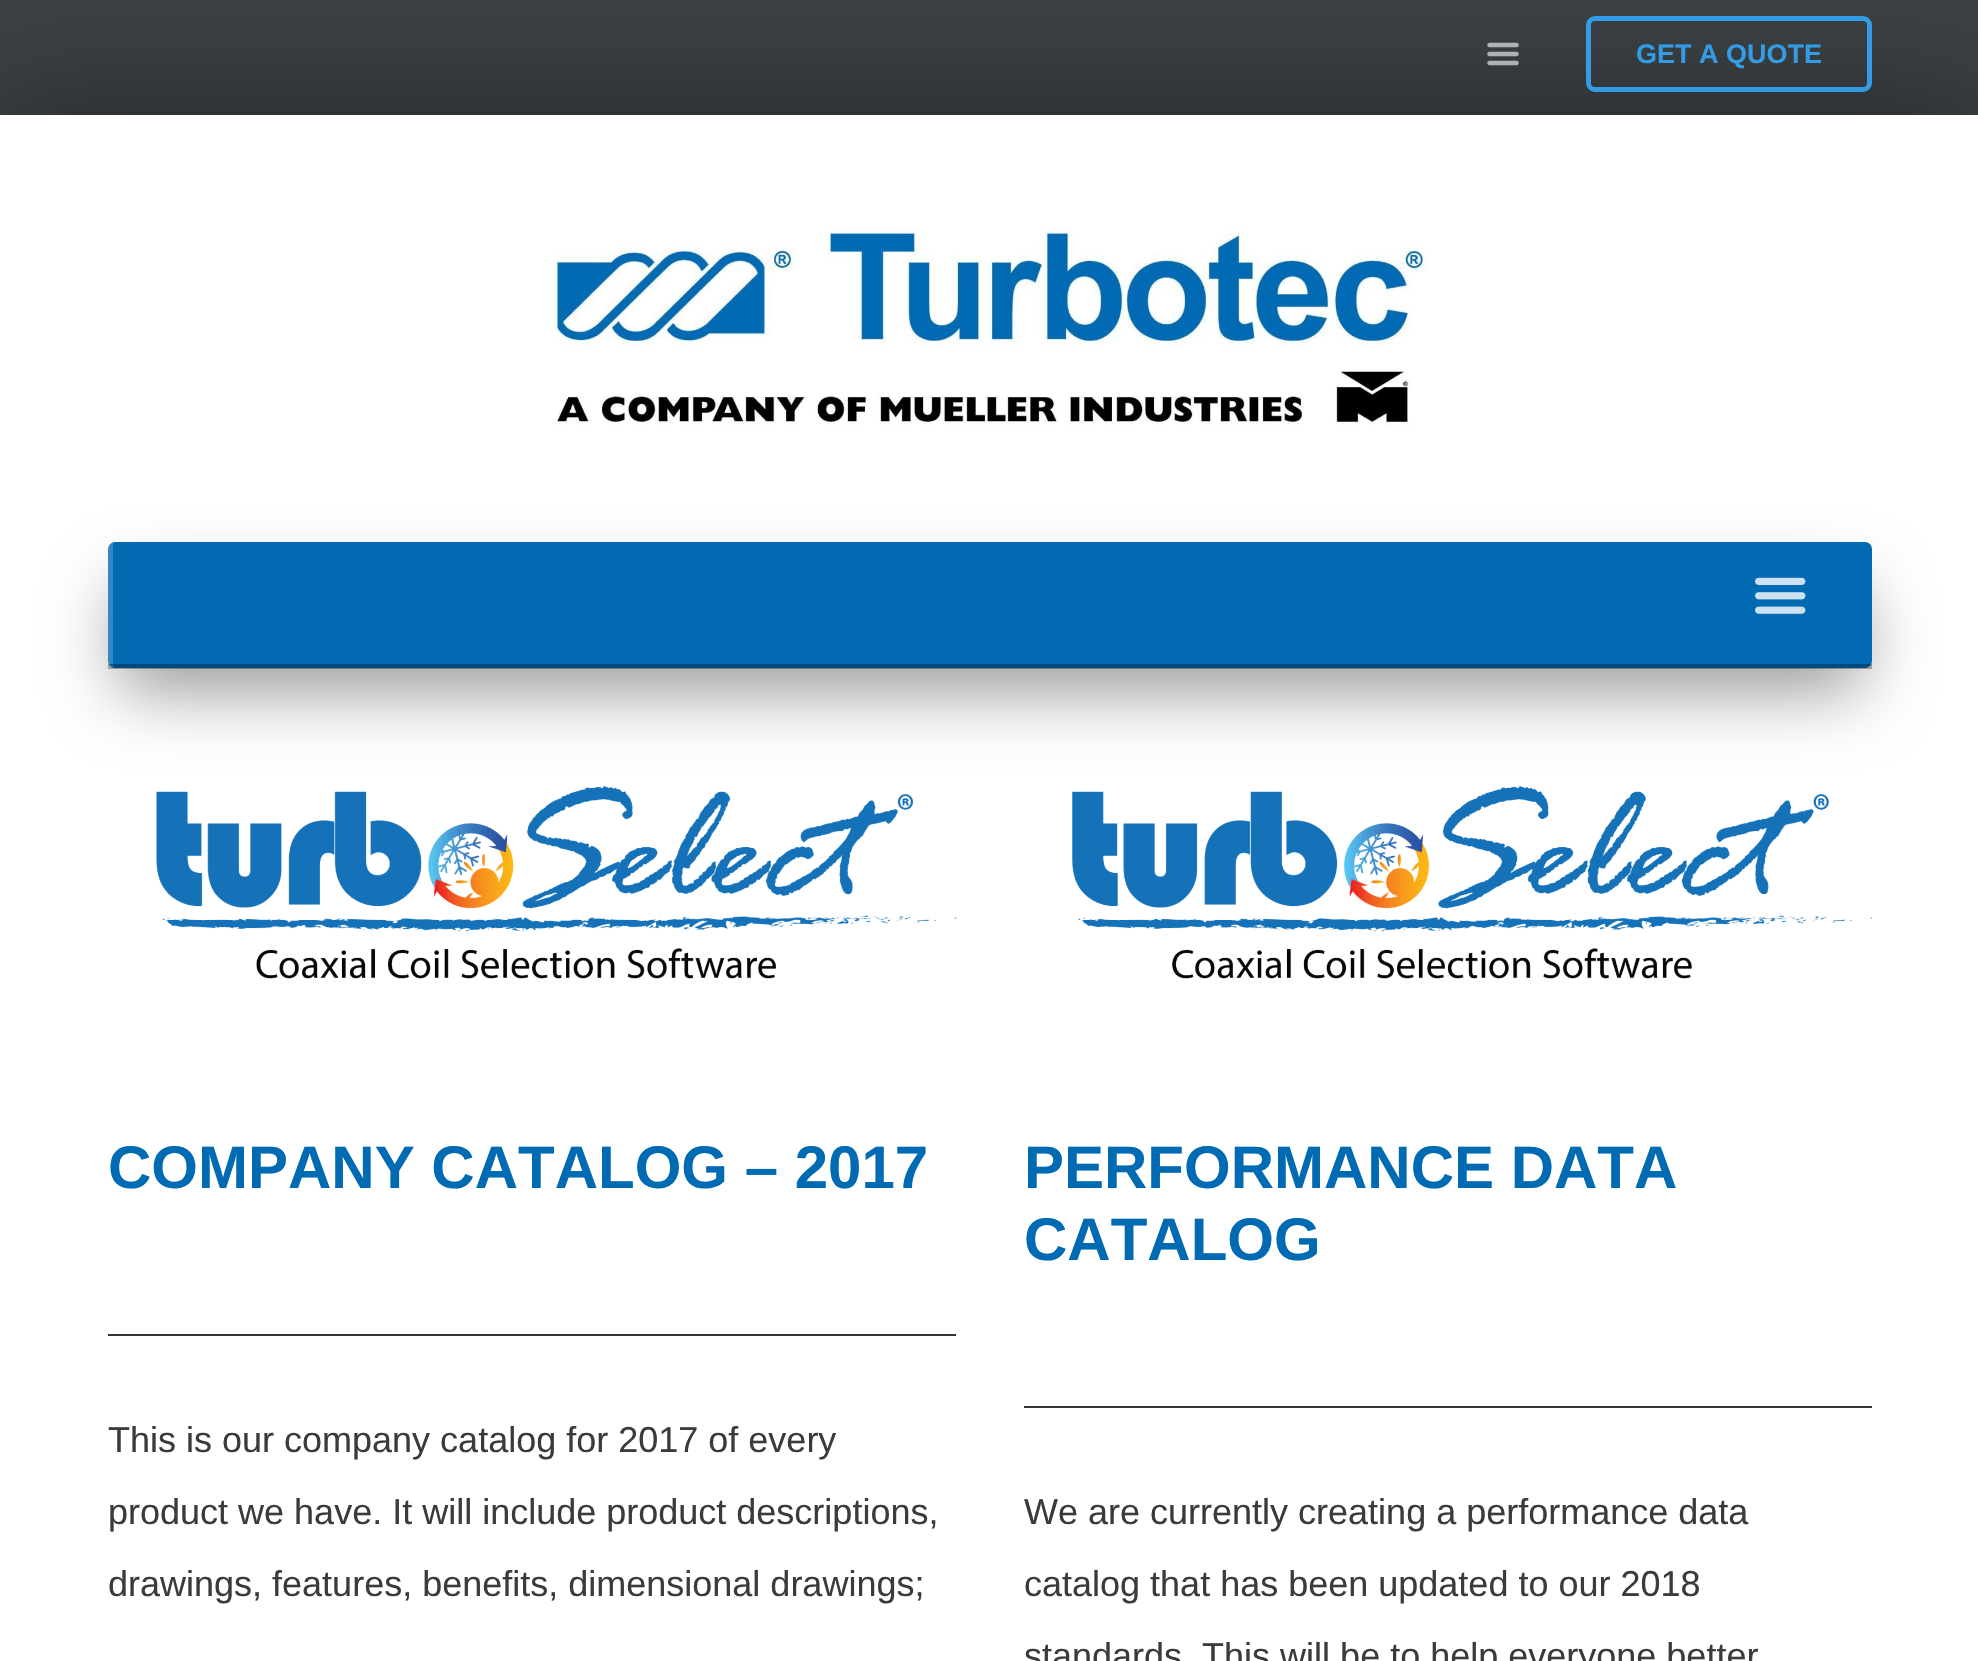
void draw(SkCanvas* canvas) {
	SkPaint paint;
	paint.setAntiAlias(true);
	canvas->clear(0xff3a4043);
	paint.setColor(0x66000000);
	paint.setMaskFilter(SkMaskFilter::MakeBlur(kNormal_SkBlurStyle, 56));
	canvas->drawRect(SkRect::MakeXYWH(-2, 113, 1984, 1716), paint);
	paint.setMaskFilter(nullptr);
	canvas->drawImageRect(SkImages::DeferredFromEncodedData(SkData::MakeFromFileName("img1.png")), SkRect::MakeXYWH(1487, 42, 32, 24), SkSamplingOptions());
	paint.setStroke(true);
	paint.setStrokeWidth(5);
	paint.setColor(0xff339ce5);
	canvas->drawRoundRect(SkRect::MakeXYWH(1588.5, 18.5, 281, 71), 6.5, 6.5, paint);
	SkFont f1(fontMgr->matchFamilyStyle("Liberation Sans", SkFontStyle::Bold()), 27);
	f1.setSubpixel(true);
	paint.setStroke(false);
	canvas->drawString("GET A QUOTE", 1636, 63, f1, paint);
	paint.setColor(0xffffffff);
	canvas->drawRect(SkRect::MakeXYWH(0, 115, 1978, 1546), paint);
	canvas->drawImageRect(SkImages::DeferredFromEncodedData(SkData::MakeFromFileName("img2.png")), SkRect::MakeXYWH(553, 226, 874, 200), SkSamplingOptions());
	canvas->drawImageRect(SkImages::DeferredFromEncodedData(SkData::MakeFromFileName("img4.png")), SkRect::MakeXYWH(156, 786, 801, 193), SkSamplingOptions());
	canvas->drawImageRect(SkImages::DeferredFromEncodedData(SkData::MakeFromFileName("img5.png")), SkRect::MakeXYWH(1072, 786, 800, 193), SkSamplingOptions());
	paint.setColor(0x66000000);
	paint.setMaskFilter(SkMaskFilter::MakeBlur(kNormal_SkBlurStyle, 34));
	canvas->drawRect(SkRect::MakeXYWH(119, 587, 1742, 104), paint);
	paint.setMaskFilter(nullptr);
	paint.setColor(0xff016ab3);
	canvas->drawRoundRect(SkRect::MakeXYWH(108, 542, 1764, 126), 7, 7, paint);
	paint.setColor(0x33ffffff);
	canvas->drawRect(SkRect::MakeXYWH(108, 542, 5, 126), paint);
	canvas->drawImageRect(SkImages::DeferredFromEncodedData(SkData::MakeFromFileName("img3.png")), SkRect::MakeXYWH(1755, 577, 51, 37), SkSamplingOptions());
	paint.setColor(0x4d000000);
	canvas->drawRect(SkRect::MakeXYWH(108, 664, 1764, 5), paint);
	SkFont f2(fontMgr->matchFamilyStyle("Liberation Sans", SkFontStyle::Bold()), 60);
	f2.setSubpixel(true);
	paint.setColor(0xff006ab3);
	canvas->drawString("COMPANY CATALOG – 2017", 108, 1188, f2, paint);
	paint.setColor(0xff333333);
	canvas->drawRect(SkRect::MakeXYWH(108, 1334, 848, 2), paint);
	SkFont f3(fontMgr->matchFamilyStyle("Liberation Sans", SkFontStyle::Normal()), 36);
	f3.setSubpixel(true);
	paint.setColor(0xff3b3b3b);
	canvas->drawString("This is our company catalog for 2017 of every", 108, 1452, f3, paint);
	canvas->drawString("product we have. It will include product descriptions,", 108, 1524, f3, paint);
	canvas->drawString("drawings, features, benefits, dimensional drawings;", 108, 1596, f3, paint);
	paint.setColor(0xff006ab3);
	canvas->drawString("PERFORMANCE DATA", 1024, 1188, f2, paint);
	canvas->drawString("CATALOG", 1024, 1260, f2, paint);
	paint.setColor(0xff333333);
	canvas->drawRect(SkRect::MakeXYWH(1024, 1406, 848, 2), paint);
	paint.setColor(0xff3b3b3b);
	canvas->drawString("We are currently creating a performance data", 1024, 1524, f3, paint);
	canvas->drawString("catalog that has been updated to our 2018", 1024, 1596, f3, paint);
	canvas->drawString("standards. This will be to help everyone better", 1024, 1668, f3, paint);
}
